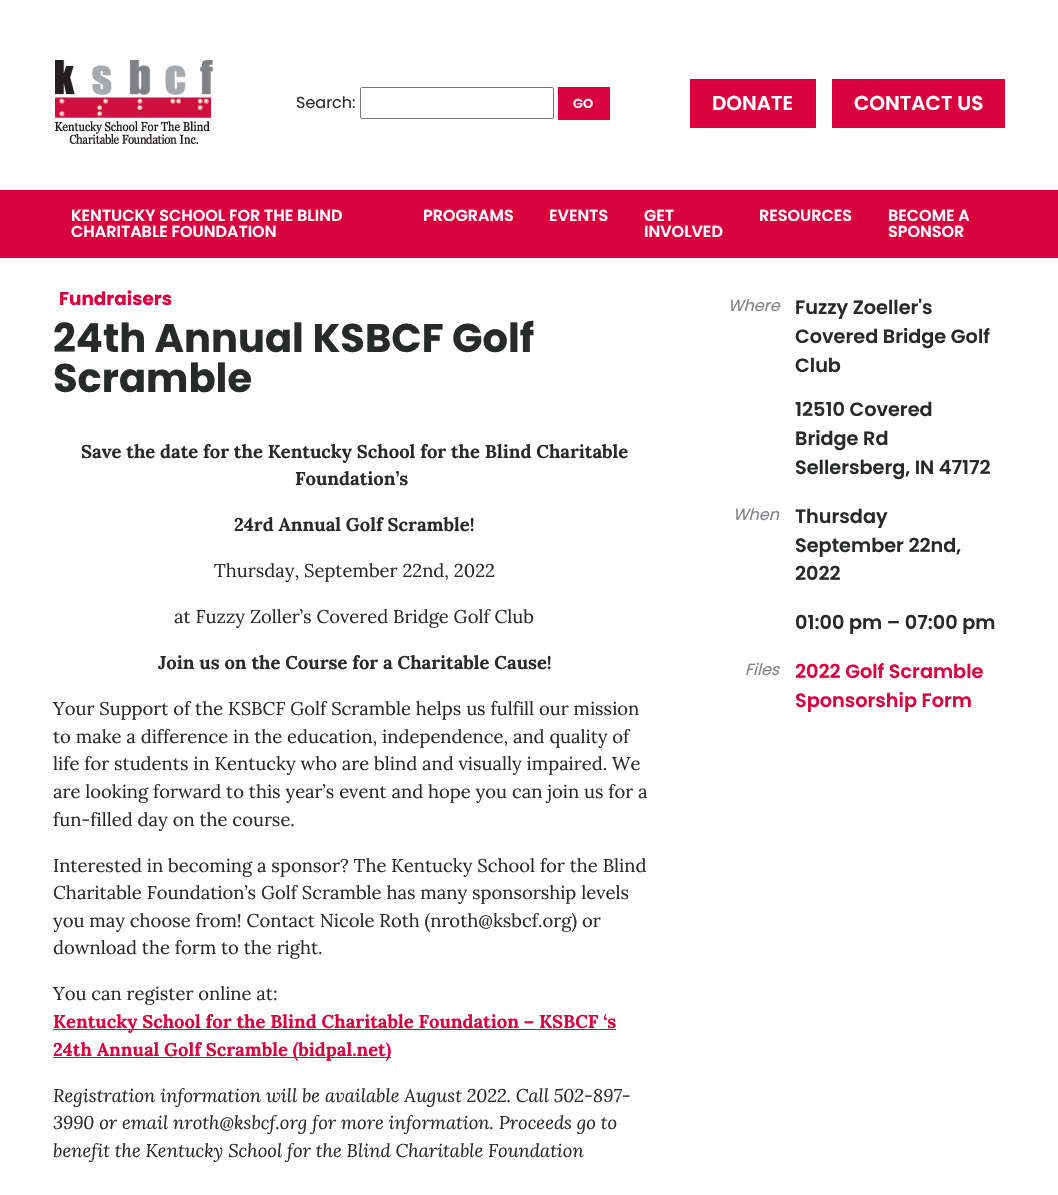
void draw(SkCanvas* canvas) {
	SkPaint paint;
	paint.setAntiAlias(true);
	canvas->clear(0xffffffff);
	canvas->drawImageRect(SkImages::DeferredFromEncodedData(SkData::MakeFromFileName("img1.png")), SkRect::MakeXYWH(55, 60, 158, 84), SkSamplingOptions());
	SkFont f1(fontMgr->matchFamilyStyle("Poppins", SkFontStyle::Normal()), 16);
	f1.setSubpixel(true);
	paint.setColor(0xff282a2a);
	canvas->drawString("Search:", 296, 108, f1, paint);
	paint.setStroke(true);
	paint.setStrokeWidth(1);
	paint.setColor(0xff767676);
	canvas->drawRoundRect(SkRect::MakeXYWH(360.5, 87.5, 193, 31), 1.5, 1.5, paint);
	paint.setStroke(false);
	paint.setColor(0xffd8003d);
	canvas->drawRect(SkRect::MakeXYWH(558, 87, 52, 33), paint);
	SkFont f2(fontMgr->matchFamilyStyle("Poppins", SkFontStyle(600, SkFontStyle::kNormal_Width, SkFontStyle::kUpright_Slant)), 13);
	f2.setSubpixel(true);
	paint.setColor(0xffffffff);
	canvas->drawString("GO", 573, 108, f2, paint);
	paint.setColor(0xffd8003d);
	canvas->drawRect(SkRect::MakeXYWH(690, 79, 126, 49), paint);
	SkFont f3(fontMgr->matchFamilyStyle("Poppins", SkFontStyle(600, SkFontStyle::kNormal_Width, SkFontStyle::kUpright_Slant)), 20);
	f3.setSubpixel(true);
	paint.setColor(0xffffffff);
	canvas->drawString("DONATE", 712, 110, f3, paint);
	paint.setColor(0xffd8003d);
	canvas->drawRect(SkRect::MakeXYWH(832, 79, 173, 49), paint);
	paint.setColor(0xffffffff);
	canvas->drawString("CONTACT US", 854, 110, f3, paint);
	paint.setColor(0xffd8003d);
	canvas->drawRect(SkRect::MakeXYWH(0, 190, 1058, 68), paint);
	SkFont f4(fontMgr->matchFamilyStyle("Poppins", SkFontStyle(600, SkFontStyle::kNormal_Width, SkFontStyle::kUpright_Slant)), 16);
	f4.setSubpixel(true);
	paint.setColor(0xffffffff);
	canvas->drawString("KENTUCKY SCHOOL FOR THE BLIND", 71, 221, f4, paint);
	canvas->drawString("CHARITABLE FOUNDATION", 71, 237, f4, paint);
	canvas->drawString("PROGRAMS", 423, 221, f4, paint);
	canvas->drawString("EVENTS", 549, 221, f4, paint);
	canvas->drawString("GET", 644, 221, f4, paint);
	canvas->drawString("INVOLVED", 644, 237, f4, paint);
	canvas->drawString("RESOURCES", 759, 221, f4, paint);
	canvas->drawString("BECOME A", 888, 221, f4, paint);
	canvas->drawString("SPONSOR", 888, 237, f4, paint);
	SkFont f5(fontMgr->matchFamilyStyle("Poppins", SkFontStyle::Bold()), 18.4);
	f5.setSubpixel(true);
	paint.setColor(0xffd8003d);
	canvas->drawString("Fundraisers", 59, 305, f5, paint);
	SkFont f6(fontMgr->matchFamilyStyle("Poppins", SkFontStyle::Bold()), 40);
	f6.setSubpixel(true);
	paint.setColor(0xff282a2a);
	canvas->drawString("24th Annual KSBCF Golf", 53, 352, f6, paint);
	canvas->drawString("Scramble", 53, 392, f6, paint);
	SkFont f7(fontMgr->matchFamilyStyle("Lora", SkFontStyle::Bold()), 18.4);
	f7.setSubpixel(true);
	canvas->drawString("Save the date for the Kentucky School for the Blind Charitable", 81, 458, f7, paint);
	canvas->drawString("Foundation’s", 295, 485, f7, paint);
	canvas->drawString("24rd Annual Golf Scramble!", 234, 531, f7, paint);
	SkFont f8(fontMgr->matchFamilyStyle("Lora", SkFontStyle::Normal()), 18.4);
	f8.setSubpixel(true);
	canvas->drawString("Thursday, September 22nd, 2022", 214, 577, f8, paint);
	canvas->drawString("at Fuzzy Zoller’s Covered Bridge Golf Club", 174, 623, f8, paint);
	canvas->drawString("Join us on the Course for a Charitable Cause!", 158, 669, f7, paint);
	canvas->drawString("Your Support of the KSBCF Golf Scramble helps us fulfill our mission", 53, 715, f8, paint);
	canvas->drawString("to make a difference in the education, independence, and quality of", 53, 743, f8, paint);
	canvas->drawString("life for students in Kentucky who are blind and visually impaired. We", 53, 770, f8, paint);
	canvas->drawString("are looking forward to this year’s event and hope you can join us for a", 53, 798, f8, paint);
	canvas->drawString("fun-filled day on the course.", 53, 826, f8, paint);
	canvas->drawString("Interested in becoming a sponsor? The Kentucky School for the Blind", 53, 872, f8, paint);
	canvas->drawString("Charitable Foundation’s Golf Scramble has many sponsorship levels", 53, 899, f8, paint);
	canvas->drawString("you may choose from! Contact Nicole Roth (nroth@ksbcf.org) or", 53, 927, f8, paint);
	canvas->drawString("download the form to the right.", 53, 954, f8, paint);
	canvas->drawString("You can register online at:", 53, 1000, f8, paint);
	paint.setColor(0xffd8003d);
	canvas->drawRect(SkRect::MakeXYWH(53, 1029, 563, 1), paint);
	canvas->drawString("Kentucky School for the Blind Charitable Foundation – KSBCF ‘s", 53, 1028, f7, paint);
	canvas->drawRect(SkRect::MakeXYWH(53, 1057, 338, 1), paint);
	canvas->drawString("24th Annual Golf Scramble (bidpal.net)", 53, 1056, f7, paint);
	SkFont f9(fontMgr->matchFamilyStyle("Lora", SkFontStyle::Italic()), 18.4);
	f9.setSubpixel(true);
	paint.setColor(0xff282a2a);
	canvas->drawString("Registration information will be available August 2022. Call 502-897-", 53, 1102, f9, paint);
	canvas->drawString("3990 or email nroth@ksbcf.org for more information. Proceeds go to", 53, 1129, f9, paint);
	canvas->drawString("benefit the Kentucky School for the Blind Charitable Foundation", 53, 1157, f9, paint);
	SkFont f10(fontMgr->matchFamilyStyle("Poppins", SkFontStyle::Italic()), 16);
	f10.setSubpixel(true);
	paint.setColor(0xff808085);
	canvas->drawString("Where", 728, 311, f10, paint);
	SkFont f11(fontMgr->matchFamilyStyle("Poppins", SkFontStyle(600, SkFontStyle::kNormal_Width, SkFontStyle::kUpright_Slant)), 19.25);
	f11.setSubpixel(true);
	paint.setColor(0xff282a2a);
	canvas->drawString("Fuzzy Zoeller's", 795, 314, f11, paint);
	canvas->drawString("Covered Bridge Golf", 795, 343, f11, paint);
	canvas->drawString("Club", 795, 372, f11, paint);
	canvas->drawString("12510 Covered", 795, 416, f11, paint);
	canvas->drawString("Bridge Rd", 795, 445, f11, paint);
	canvas->drawString("Sellersberg, IN 47172", 795, 474, f11, paint);
	paint.setColor(0xff808085);
	canvas->drawString("When", 733, 520, f10, paint);
	paint.setColor(0xff282a2a);
	canvas->drawString("Thursday", 795, 523, f11, paint);
	canvas->drawString("September 22nd,", 795, 552, f11, paint);
	canvas->drawString("2022", 795, 580, f11, paint);
	canvas->drawString("01:00 pm – 07:00 pm", 795, 629, f11, paint);
	paint.setColor(0xff808085);
	canvas->drawString("Files", 745, 675, f10, paint);
	paint.setColor(0xffd8003d);
	canvas->drawString("2022 Golf Scramble", 795, 678, f11, paint);
	canvas->drawString("Sponsorship Form", 795, 707, f11, paint);
}
